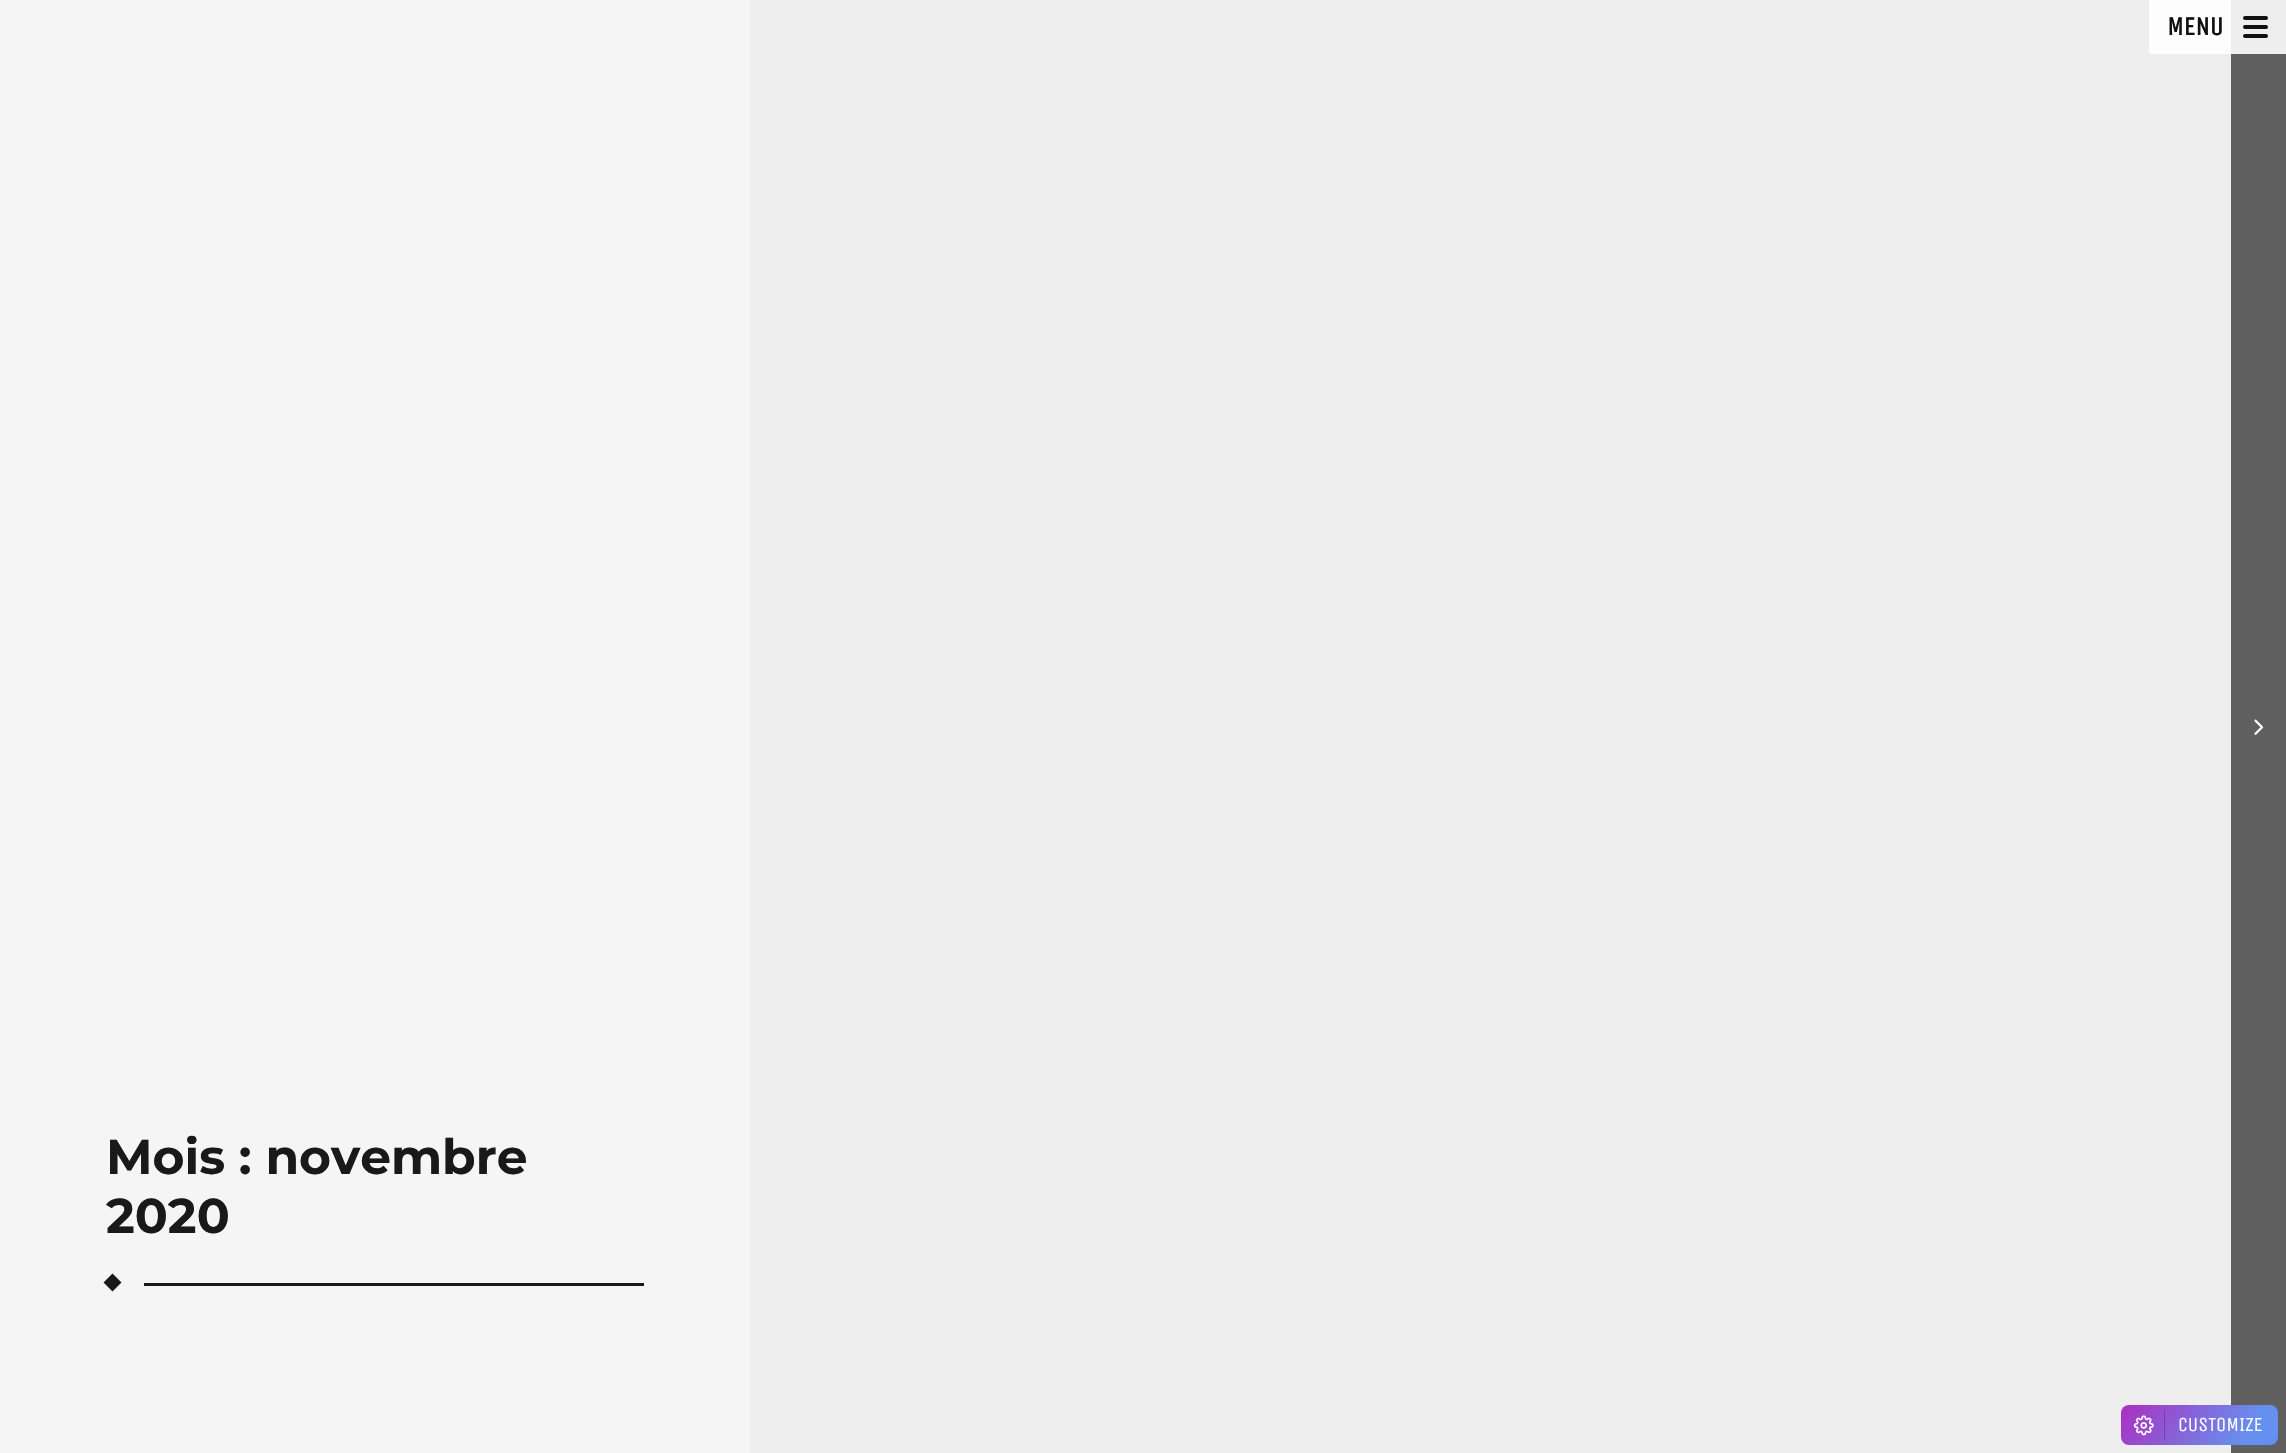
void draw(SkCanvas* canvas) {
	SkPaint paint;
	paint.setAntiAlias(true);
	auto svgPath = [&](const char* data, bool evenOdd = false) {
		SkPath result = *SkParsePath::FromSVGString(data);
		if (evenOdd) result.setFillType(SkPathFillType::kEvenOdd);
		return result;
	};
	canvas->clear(0xffeeeeee);
	paint.setColor(0xfffdfdfd);
	canvas->drawRect(SkRect::MakeXYWH(2149, 0, 82, 54), paint);
	SkFont f1(fontMgr->matchFamilyStyle("Unica One", SkFontStyle::Bold()), 26);
	f1.setSubpixel(true);
	paint.setColor(0xff111111);
	canvas->drawString("MENU", 2167, 35, f1, paint);
	canvas->drawRoundRect(SkRect::MakeXYWH(2243, 16, 25, 4), 2, 2, paint);
	canvas->drawRoundRect(SkRect::MakeXYWH(2243, 25, 25, 4), 2, 2, paint);
	canvas->drawRoundRect(SkRect::MakeXYWH(2243, 34, 25, 4), 2, 2, paint);
	paint.setColor(0xfff5f5f5);
	canvas->drawRect(SkRect::MakeXYWH(0, 0, 750, 1453), paint);
	SkFont f2(fontMgr->matchFamilyStyle("Montserrat", SkFontStyle::Bold()), 48.75);
	f2.setSubpixel(true);
	paint.setColor(0xff191919);
	canvas->drawString("Mois : novembre", 106, 1174, f2, paint);
	canvas->drawString("2020", 106, 1233, f2, paint);
	canvas->drawPath(svgPath("M112.5 1273.5L121.5 1282.5L112.5 1291.5L103.5 1282.5Z"), paint);
	canvas->drawRect(SkRect::MakeXYWH(144, 1283, 500, 3), paint);
	paint.setColor(0xff5f5f5f);
	canvas->drawRect(SkRect::MakeXYWH(2231, 54, 55, 1399), paint);
	canvas->drawImageRect(SkImages::DeferredFromEncodedData(SkData::MakeFromFileName("img1.png")), SkRect::MakeXYWH(2254, 719, 10, 16), SkSamplingOptions());
	{
		const SkColor colors[] = {0xff6690ef, 0xffab30c1};
		const float stops[] = {0.2, 1};
		const SkPoint ends[] = {{2261, 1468}, {2138, 1382}};
		paint.setShader(SkGradientShader::MakeLinear(ends, colors, stops, 2, SkTileMode::kClamp));
		paint.setAlpha(255);
	}
	canvas->drawRoundRect(SkRect::MakeXYWH(2121, 1405, 157, 40), 8, 8, paint);
	{
		const SkColor colors[] = {0xff5273bf, 0xff89269a};
		const float stops[] = {0.2, 1};
		const SkPoint ends[] = {{2261, 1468}, {2138, 1382}};
		paint.setShader(SkGradientShader::MakeLinear(ends, colors, stops, 2, SkTileMode::kClamp));
		paint.setAlpha(255);
	}
	canvas->drawRect(SkRect::MakeXYWH(2164, 1410, 1, 30), paint);
	canvas->drawImageRect(SkImages::DeferredFromEncodedData(SkData::MakeFromFileName("img2.png")), SkRect::MakeXYWH(2133, 1415, 21, 21), SkSamplingOptions());
	SkFont f3(fontMgr->matchFamilyStyle("Unica One", SkFontStyle::Normal()), 20);
	f3.setSubpixel(true);
	paint.setShader(nullptr);
	paint.setColor(0xffffffff);
	canvas->drawString("CUSTOMIZE", 2178, 1431, f3, paint);
}
